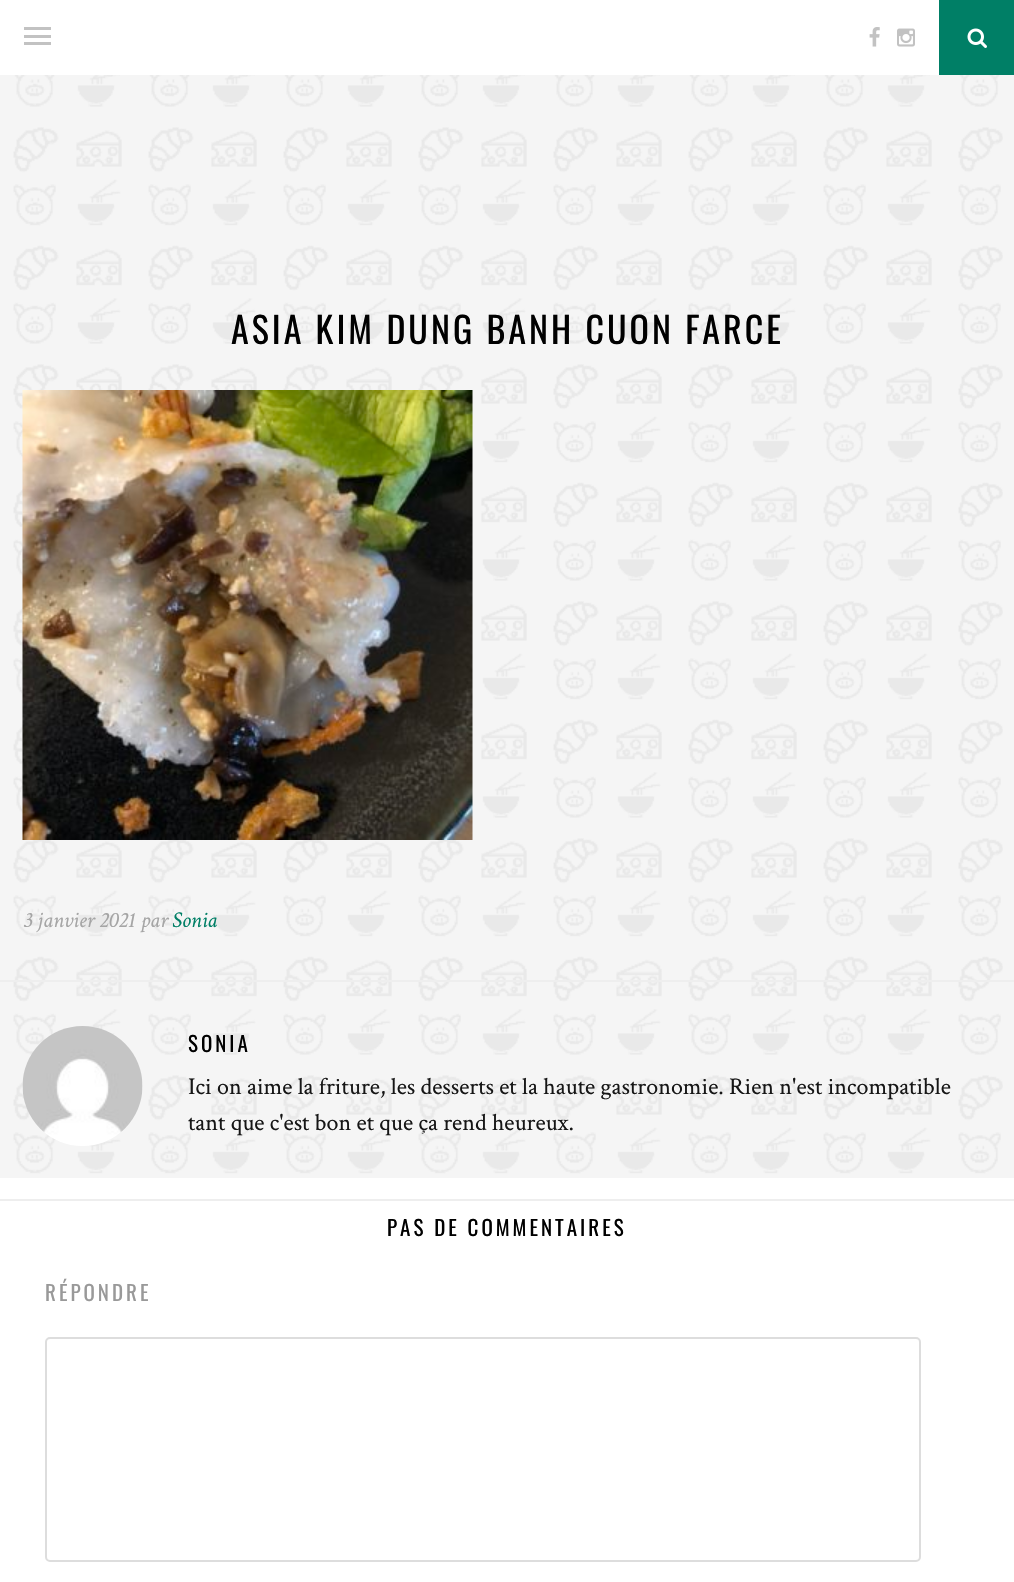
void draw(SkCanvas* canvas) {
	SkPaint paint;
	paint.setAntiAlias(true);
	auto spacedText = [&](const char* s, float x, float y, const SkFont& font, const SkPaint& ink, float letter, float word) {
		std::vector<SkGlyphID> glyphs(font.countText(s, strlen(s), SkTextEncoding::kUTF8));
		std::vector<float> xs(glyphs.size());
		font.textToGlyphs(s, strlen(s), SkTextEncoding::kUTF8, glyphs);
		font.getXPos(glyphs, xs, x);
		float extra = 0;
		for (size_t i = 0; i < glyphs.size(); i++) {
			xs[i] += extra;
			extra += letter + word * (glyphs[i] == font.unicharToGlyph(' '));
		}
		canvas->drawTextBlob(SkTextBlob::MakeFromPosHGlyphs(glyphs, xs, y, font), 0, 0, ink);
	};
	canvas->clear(0xfff5f5f5);
	canvas->drawImageRect(SkImages::DeferredFromEncodedData(SkData::MakeFromFileName("img1.png")), SkRect::MakeXYWH(13, 75, 990, 1099), SkSamplingOptions());
	paint.setColor(0xffffffff);
	canvas->drawRect(SkRect::MakeXYWH(0, 0, 939, 75), paint);
	paint.setColor(0xffc2c2c2);
	canvas->drawRect(SkRect::MakeXYWH(24, 27, 27, 3), paint);
	canvas->drawRect(SkRect::MakeXYWH(24, 35, 27, 3), paint);
	canvas->drawRect(SkRect::MakeXYWH(24, 42, 27, 3), paint);
	canvas->drawImageRect(SkImages::DeferredFromEncodedData(SkData::MakeFromFileName("img2.png")), SkRect::MakeXYWH(869, 27, 11, 20), SkSamplingOptions());
	canvas->drawImageRect(SkImages::DeferredFromEncodedData(SkData::MakeFromFileName("img3.png")), SkRect::MakeXYWH(897, 28, 18, 19), SkSamplingOptions());
	paint.setColor(0xff007f66);
	canvas->drawRect(SkRect::MakeXYWH(939, 0, 75, 75), paint);
	canvas->drawImageRect(SkImages::DeferredFromEncodedData(SkData::MakeFromFileName("img4.png")), SkRect::MakeXYWH(967, 28, 20, 20), SkSamplingOptions());
	SkFont f1(fontMgr->matchFamilyStyle("Oswald", SkFontStyle::Normal()), 36);
	f1.setSubpixel(true);
	paint.setColor(0xff000000);
	spacedText("ASIA KIM DUNG BANH CUON FARCE", 231, 344, f1, paint, 3, 0);
	canvas->drawImageRect(SkImages::DeferredFromEncodedData(SkData::MakeFromFileName("img5.png")), SkRect::MakeXYWH(22, 390, 451, 450), SkSamplingOptions());
	SkFont f2(fontMgr->matchFamilyStyle("Crimson Text", SkFontStyle::Italic()), 22.5);
	f2.setSubpixel(true);
	paint.setColor(0xffa5a5a5);
	canvas->drawString("3 janvier 2021 par", 23, 927, f2, paint);
	paint.setColor(0xff007f66);
	canvas->drawString("Sonia", 172, 927, f2, paint);
	paint.setColor(0xffeeeeee);
	canvas->drawRect(SkRect::MakeXYWH(0, 980, 1014, 2), paint);
	canvas->drawImageRect(SkImages::DeferredFromEncodedData(SkData::MakeFromFileName("img6.png")), SkRect::MakeXYWH(22, 1026, 121, 120), SkSamplingOptions());
	SkFont f3(fontMgr->matchFamilyStyle("Oswald", SkFontStyle::Normal()), 21);
	f3.setSubpixel(true);
	paint.setColor(0xff000000);
	spacedText("SONIA", 188, 1052, f3, paint, 3, 0);
	SkFont f4(fontMgr->matchFamilyStyle("Crimson Text", SkFontStyle::Normal()), 24);
	f4.setSubpixel(true);
	paint.setColor(0xff161616);
	canvas->drawString("Ici on aime la friture, les desserts et la haute gastronomie. Rien n'est incompatible", 188, 1094, f4, paint);
	canvas->drawString("tant que c'est bon et que ça rend heureux.", 188, 1130, f4, paint);
	paint.setColor(0xffffffff);
	canvas->drawRect(SkRect::MakeXYWH(0, 1178, 1014, 404), paint);
	paint.setColor(0xffeeeeee);
	canvas->drawRect(SkRect::MakeXYWH(0, 1199, 1014, 2), paint);
	paint.setColor(0xff000000);
	spacedText("PAS DE COMMENTAIRES", 387, 1236, f3, paint, 3, 0);
	paint.setColor(0xff999999);
	spacedText("RÉPONDRE", 45, 1301, f3, paint, 3, 0);
	paint.setStroke(true);
	paint.setStrokeWidth(2);
	paint.setColor(0xffdddddd);
	canvas->drawRoundRect(SkRect::MakeXYWH(46, 1338, 874, 223), 4, 4, paint);
}
